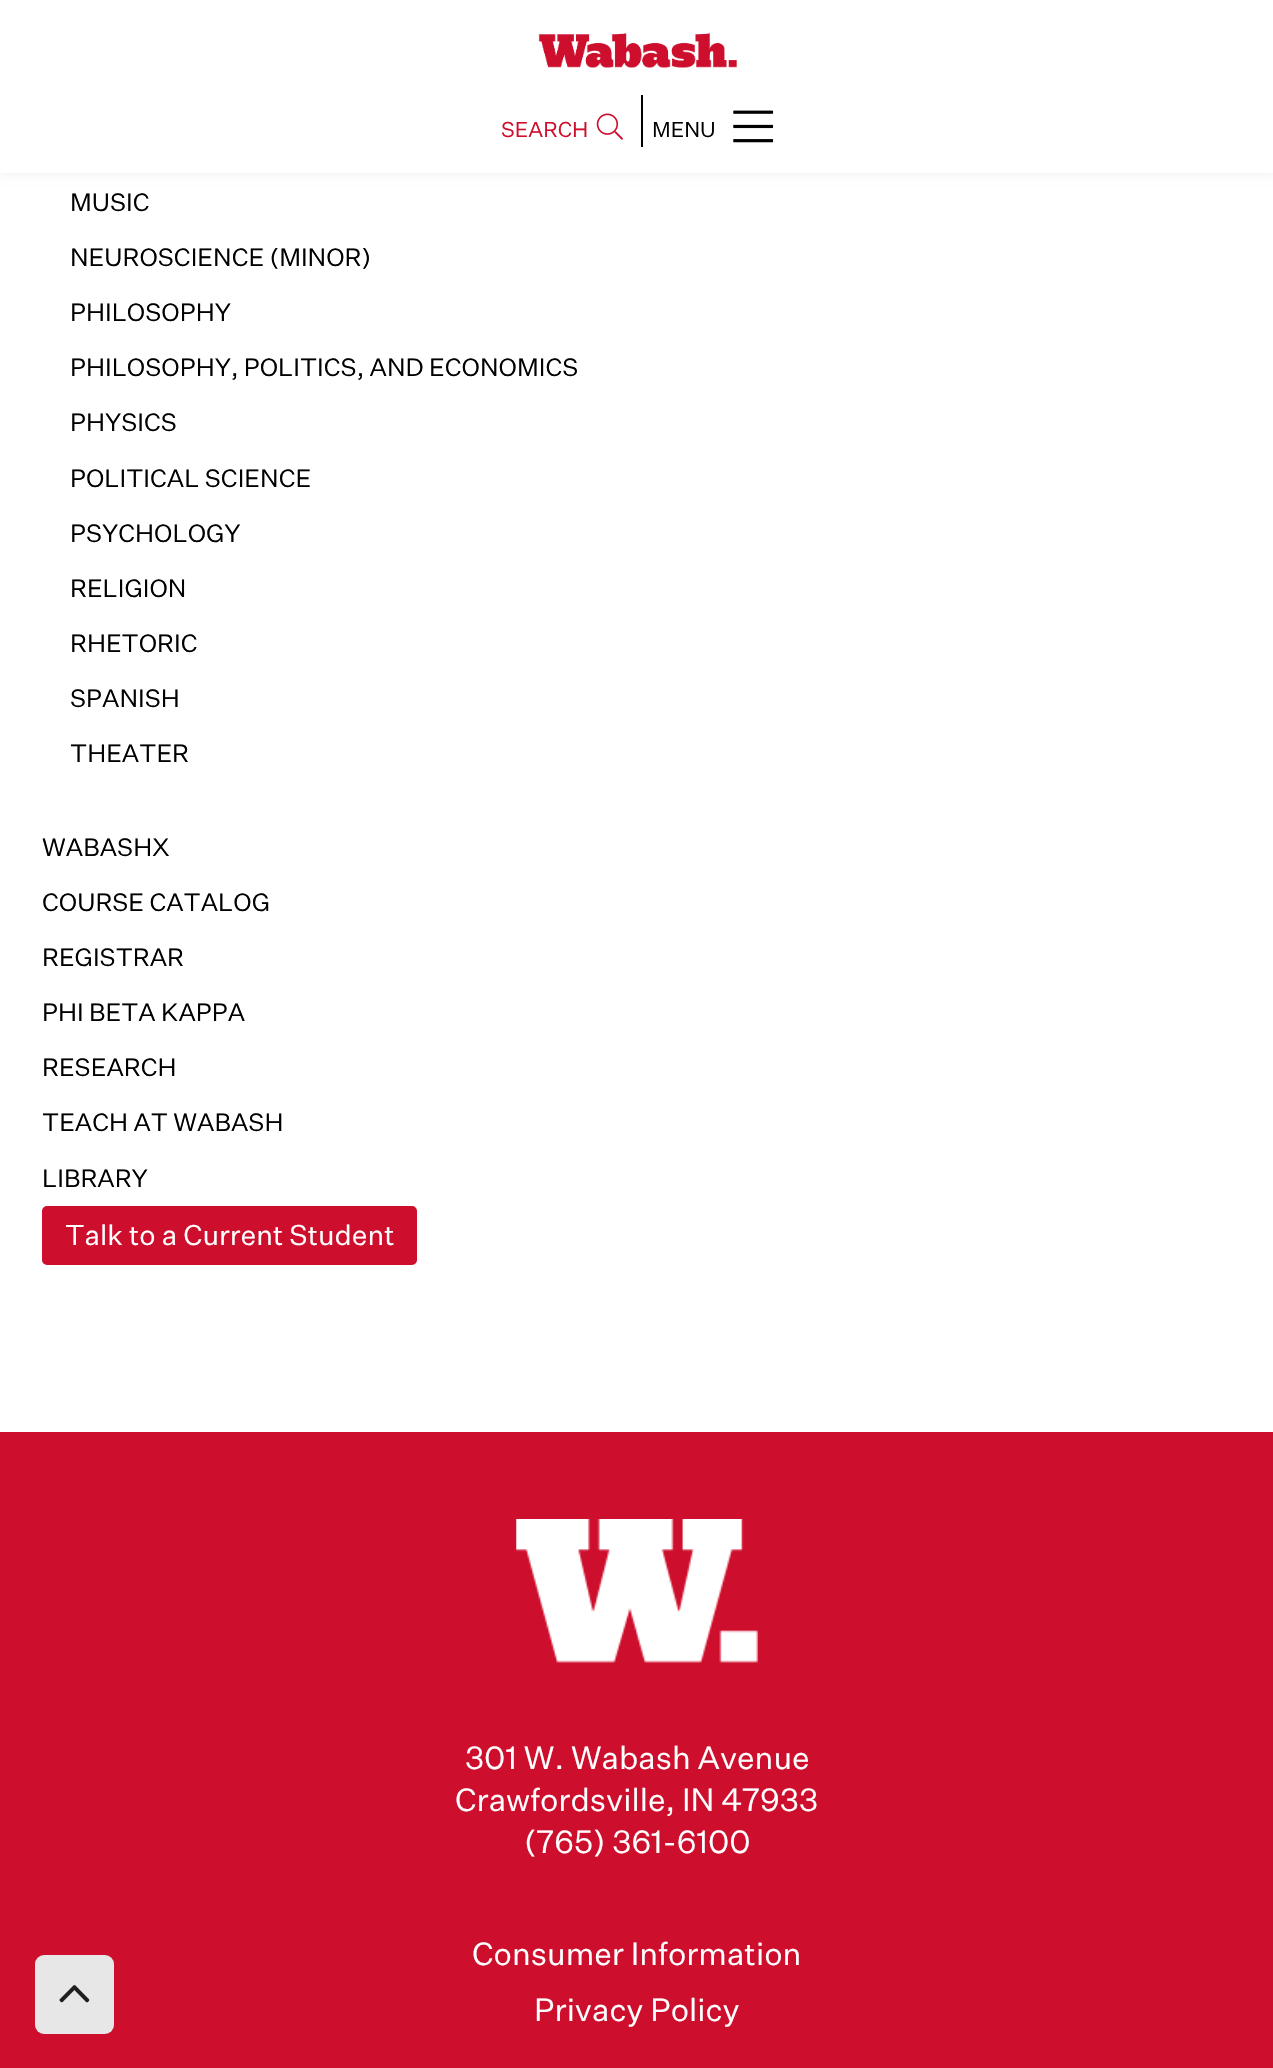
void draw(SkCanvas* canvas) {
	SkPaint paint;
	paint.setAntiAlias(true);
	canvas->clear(0xffffffff);
	paint.setColor(0x12000000);
	paint.setMaskFilter(SkMaskFilter::MakeBlur(kNormal_SkBlurStyle, 5));
	canvas->drawRect(SkRect::MakeXYWH(0, 0, 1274, 173), paint);
	paint.setMaskFilter(nullptr);
	paint.setColor(0xffffffff);
	canvas->drawRect(SkRect::MakeXYWH(0, 0, 1273, 173), paint);
	canvas->drawImageRect(SkImages::DeferredFromEncodedData(SkData::MakeFromFileName("img1.png")), SkRect::MakeXYWH(538, 33, 199, 35), SkSamplingOptions());
	SkFont f1(fontMgr->matchFamilyStyle("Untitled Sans", SkFontStyle::Normal()), 21);
	f1.setSubpixel(true);
	paint.setColor(0xffcd0e2c);
	canvas->drawString("SEARCH", 501, 137, f1, paint);
	canvas->drawImageRect(SkImages::DeferredFromEncodedData(SkData::MakeFromFileName("img2.png")), SkRect::MakeXYWH(596, 113, 27, 27), SkSamplingOptions());
	paint.setColor(0xff000000);
	canvas->drawRect(SkRect::MakeXYWH(641, 95, 2, 52), paint);
	canvas->drawString("MENU", 652, 137, f1, paint);
	canvas->drawImageRect(SkImages::DeferredFromEncodedData(SkData::MakeFromFileName("img3.png")), SkRect::MakeXYWH(733, 110, 41, 33), SkSamplingOptions());
	SkFont f2(fontMgr->matchFamilyStyle("Untitled Sans", SkFontStyle::Normal()), 24.5);
	f2.setSubpixel(true);
	canvas->drawString("MUSIC", 70, 211, f2, paint);
	canvas->drawString("NEUROSCIENCE (MINOR)", 70, 266, f2, paint);
	canvas->drawString("PHILOSOPHY", 70, 321, f2, paint);
	canvas->drawString("PHILOSOPHY, POLITICS, AND ECONOMICS", 70, 376, f2, paint);
	canvas->drawString("PHYSICS", 70, 431, f2, paint);
	canvas->drawString("POLITICAL SCIENCE", 70, 487, f2, paint);
	canvas->drawString("PSYCHOLOGY", 70, 542, f2, paint);
	canvas->drawString("RELIGION", 70, 597, f2, paint);
	canvas->drawString("RHETORIC", 70, 652, f2, paint);
	canvas->drawString("SPANISH", 70, 707, f2, paint);
	canvas->drawString("THEATER", 70, 762, f2, paint);
	canvas->drawString("WABASHX", 42, 856, f2, paint);
	canvas->drawString("COURSE CATALOG", 42, 911, f2, paint);
	canvas->drawString("REGISTRAR", 42, 966, f2, paint);
	canvas->drawString("PHI BETA KAPPA", 42, 1021, f2, paint);
	canvas->drawString("RESEARCH", 42, 1076, f2, paint);
	canvas->drawString("TEACH AT WABASH", 42, 1131, f2, paint);
	canvas->drawString("LIBRARY", 42, 1187, f2, paint);
	paint.setColor(0xffcd0e2c);
	canvas->drawRoundRect(SkRect::MakeXYWH(43, 1207, 373, 57), 4, 4, paint);
	paint.setStroke(true);
	paint.setStrokeWidth(2);
	canvas->drawRoundRect(SkRect::MakeXYWH(43, 1207, 373, 57), 4, 4, paint);
	SkFont f3(fontMgr->matchFamilyStyle("Untitled Sans", SkFontStyle::Normal()), 28);
	f3.setSubpixel(true);
	paint.setStroke(false);
	paint.setColor(0xffffffff);
	canvas->drawString("Talk to a Current Student", 65, 1245, f3, paint);
	paint.setColor(0xffcd0e2c);
	canvas->drawRect(SkRect::MakeXYWH(0, 1432, 1273, 636), paint);
	paint.setColor(0xffe7e7e7);
	canvas->drawRoundRect(SkRect::MakeXYWH(35, 1955, 79, 79), 9, 9, paint);
	canvas->drawImageRect(SkImages::DeferredFromEncodedData(SkData::MakeFromFileName("img4.png")), SkRect::MakeXYWH(59, 1985, 31, 18), SkSamplingOptions());
	canvas->drawImageRect(SkImages::DeferredFromEncodedData(SkData::MakeFromFileName("img5.png")), SkRect::MakeXYWH(516, 1519, 242, 144), SkSamplingOptions());
	SkFont f4(fontMgr->matchFamilyStyle("Untitled Sans", SkFontStyle::Normal()), 31.5);
	f4.setSubpixel(true);
	paint.setColor(0xffffffff);
	canvas->drawString("301 W. Wabash Avenue", 465, 1769, f4, paint);
	canvas->drawString("Crawfordsville, IN 47933", 455, 1811, f4, paint);
	canvas->drawString("(765) 361-6100", 524, 1853, f4, paint);
	canvas->drawString("Consumer Information", 472, 1965, f4, paint);
	canvas->drawString("Privacy Policy", 534, 2021, f4, paint);
}
